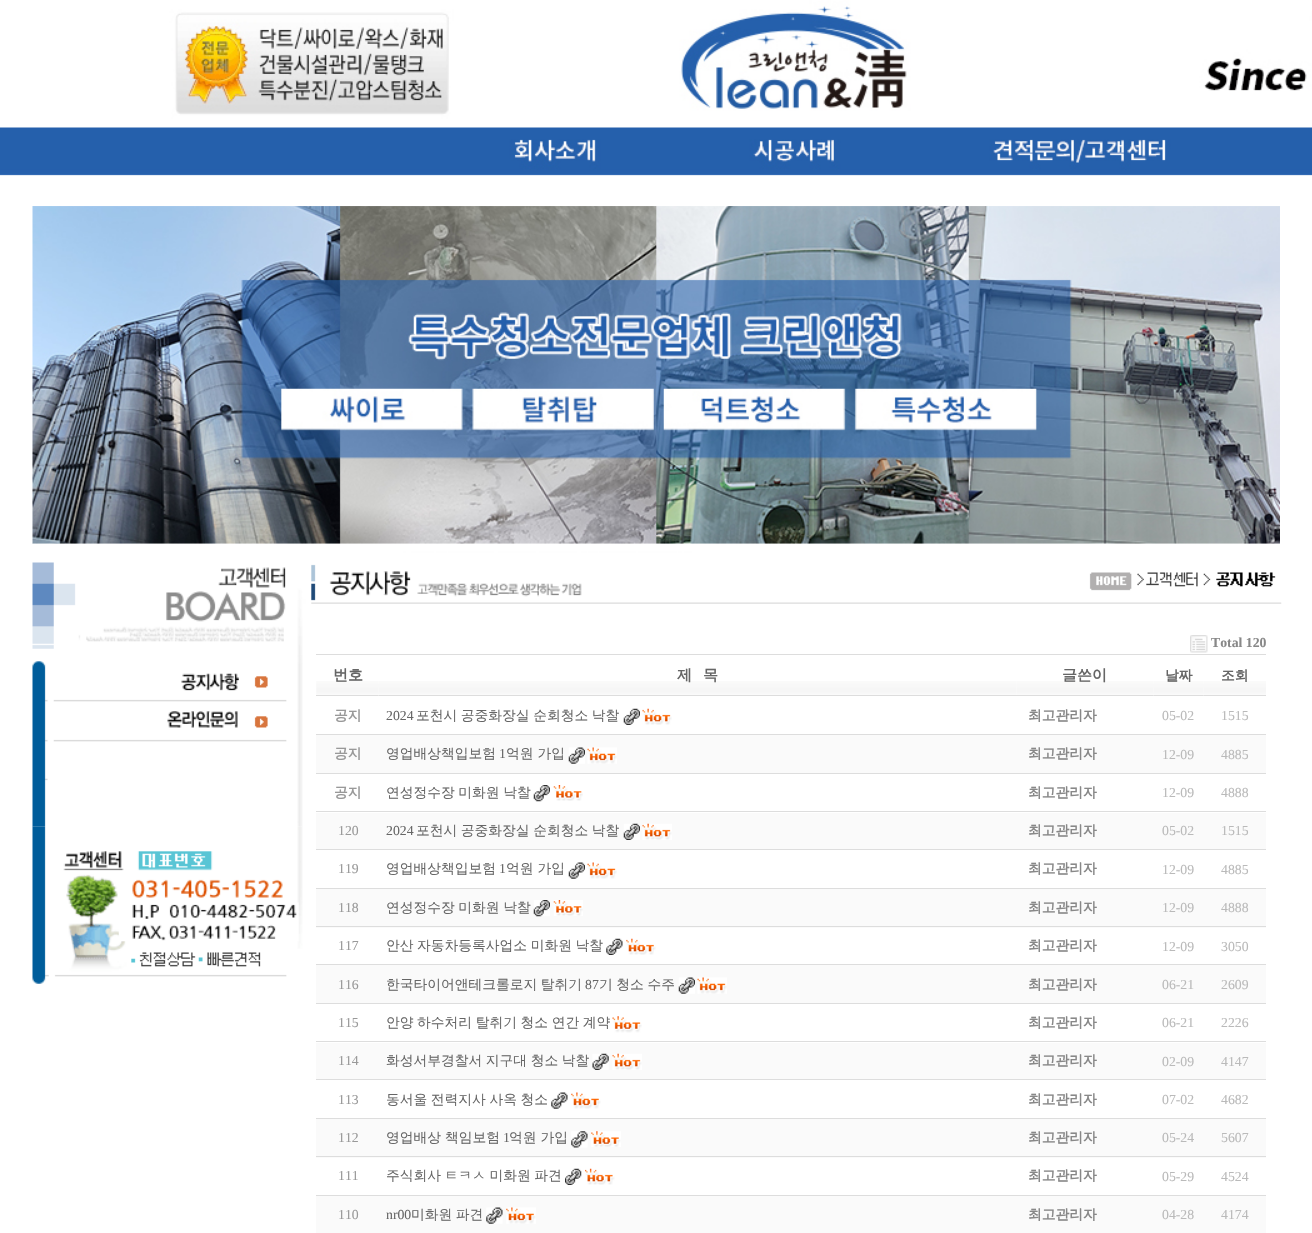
void draw(SkCanvas* canvas) {
	SkPaint paint;
	paint.setAntiAlias(true);
	auto spacedText = [&](const char* s, float x, float y, const SkFont& font, const SkPaint& ink, float letter, float word) {
		std::vector<SkGlyphID> glyphs(font.countText(s, strlen(s), SkTextEncoding::kUTF8));
		std::vector<float> xs(glyphs.size());
		font.textToGlyphs(s, strlen(s), SkTextEncoding::kUTF8, glyphs);
		font.getXPos(glyphs, xs, x);
		float extra = 0;
		for (size_t i = 0; i < glyphs.size(); i++) {
			xs[i] += extra;
			extra += letter + word * (glyphs[i] == font.unicharToGlyph(' '));
		}
		canvas->drawTextBlob(SkTextBlob::MakeFromPosHGlyphs(glyphs, xs, y, font), 0, 0, ink);
	};
	canvas->clear(0xffffffff);
	canvas->drawImageRect(SkImages::DeferredFromEncodedData(SkData::MakeFromFileName("img2.png")), SkRect::MakeXYWH(32, 206, 1248, 338), SkSamplingOptions());
	canvas->drawImageRect(SkImages::DeferredFromEncodedData(SkData::MakeFromFileName("img1.png")), SkRect::MakeXYWH(0, 0, 1312, 207), SkSamplingOptions());
	canvas->drawImageRect(SkImages::DeferredFromEncodedData(SkData::MakeFromFileName("img3.png")), SkRect::MakeXYWH(32, 543, 271, 284), SkSamplingOptions());
	canvas->drawImageRect(SkImages::DeferredFromEncodedData(SkData::MakeFromFileName("img4.png")), SkRect::MakeXYWH(32, 826, 271, 158), SkSamplingOptions());
	canvas->drawImageRect(SkImages::DeferredFromEncodedData(SkData::MakeFromFileName("img5.png")), SkRect::MakeXYWH(302, 543, 980, 61), SkSamplingOptions());
	canvas->drawImageRect(SkImages::DeferredFromEncodedData(SkData::MakeFromFileName("img6.png")), SkRect::MakeXYWH(1190, 635, 18, 18), SkSamplingOptions());
	SkFont f1(fontMgr->matchFamilyStyle("Liberation Serif", SkFontStyle::Bold()), 13.75);
	f1.setSubpixel(true);
	paint.setColor(0xff888888);
	canvas->drawString("Total 120", 1211, 647, f1, paint);
	canvas->drawImageRect(SkImages::DeferredFromEncodedData(SkData::MakeFromFileName("img7.png")), SkRect::MakeXYWH(316, 681, 63, 14), SkSamplingOptions());
	paint.setColor(0xffdddddd);
	canvas->drawRect(SkRect::MakeXYWH(316, 654, 950, 1), paint);
	canvas->drawRect(SkRect::MakeXYWH(316, 695, 63, 1), paint);
	SkFont f2(fontMgr->matchFamilyStyle("WenQuanYi Zen Hei", SkFontStyle::Bold()), 15);
	f2.setSubpixel(true);
	paint.setColor(0xff666666);
	canvas->drawString("번호", 333, 680, f2, paint);
	canvas->drawImageRect(SkImages::DeferredFromEncodedData(SkData::MakeFromFileName("img8.png")), SkRect::MakeXYWH(378, 681, 638, 15), SkSamplingOptions());
	paint.setColor(0xffdddddd);
	canvas->drawRect(SkRect::MakeXYWH(379, 695, 775, 1), paint);
	paint.setColor(0xff666666);
	canvas->drawString("제", 677, 680, f2, paint);
	canvas->drawString("목", 703, 680, f2, paint);
	canvas->drawImageRect(SkImages::DeferredFromEncodedData(SkData::MakeFromFileName("img9.png")), SkRect::MakeXYWH(1016, 681, 138, 14), SkSamplingOptions());
	canvas->drawString("글쓴이", 1062, 680, f2, paint);
	canvas->drawImageRect(SkImages::DeferredFromEncodedData(SkData::MakeFromFileName("img10.png")), SkRect::MakeXYWH(1153, 681, 51, 15), SkSamplingOptions());
	paint.setColor(0xffdddddd);
	canvas->drawRect(SkRect::MakeXYWH(1154, 695, 50, 1), paint);
	SkFont f3(fontMgr->matchFamilyStyle("WenQuanYi Zen Hei", SkFontStyle::Bold()), 13.75);
	f3.setSubpixel(true);
	paint.setColor(0xff666666);
	canvas->drawString("날짜", 1165, 680, f3, paint);
	canvas->drawImageRect(SkImages::DeferredFromEncodedData(SkData::MakeFromFileName("img11.png")), SkRect::MakeXYWH(1203, 681, 63, 15), SkSamplingOptions());
	paint.setColor(0xffdddddd);
	canvas->drawRect(SkRect::MakeXYWH(1204, 695, 62, 1), paint);
	paint.setColor(0xff666666);
	canvas->drawString("조회", 1221, 680, f3, paint);
	paint.setColor(0xffdddddd);
	canvas->drawRect(SkRect::MakeXYWH(316, 734, 63, 1), paint);
	paint.setColor(0xff999999);
	canvas->drawString("공지", 334, 720, f3, paint);
	SkFont f4(fontMgr->matchFamilyStyle("Liberation Serif", SkFontStyle::Normal()), 13.75);
	f4.setSubpixel(true);
	paint.setColor(0xff666666);
	canvas->drawString("2024", 386, 720, f4, paint);
	SkFont f5(fontMgr->matchFamilyStyle("WenQuanYi Zen Hei", SkFontStyle(500, SkFontStyle::kNormal_Width, SkFontStyle::kUpright_Slant)), 13.75);
	f5.setSubpixel(true);
	spacedText("포천시 공중화장실 순회청소 낙찰", 416, 720, f5, paint, 0, -0.5);
	canvas->drawImageRect(SkImages::DeferredFromEncodedData(SkData::MakeFromFileName("img12.png")), SkRect::MakeXYWH(623, 708, 17, 17), SkSamplingOptions());
	canvas->drawImageRect(SkImages::DeferredFromEncodedData(SkData::MakeFromFileName("img13.png")), SkRect::MakeXYWH(642, 708, 30, 17), SkSamplingOptions());
	paint.setColor(0xffdddddd);
	canvas->drawRect(SkRect::MakeXYWH(379, 734, 887, 1), paint);
	paint.setColor(0xff888888);
	canvas->drawString("최고관리자", 1028, 720, f3, paint);
	paint.setColor(0xffbababa);
	canvas->drawString("05-02", 1162, 720, f4, paint);
	canvas->drawString("1515", 1221, 720, f4, paint);
	paint.setColor(0xfffafafa);
	canvas->drawRect(SkRect::MakeXYWH(316, 735, 950, 38), paint);
	paint.setColor(0xffdddddd);
	canvas->drawRect(SkRect::MakeXYWH(316, 773, 63, 1), paint);
	paint.setColor(0xff999999);
	canvas->drawString("공지", 334, 758, f3, paint);
	paint.setColor(0xff666666);
	canvas->drawString("영업배상책입보험", 386, 758, f5, paint);
	canvas->drawString("1", 499, 758, f4, paint);
	canvas->drawString("억원 가입", 506, 758, f5, paint);
	canvas->drawImageRect(SkImages::DeferredFromEncodedData(SkData::MakeFromFileName("img14.png")), SkRect::MakeXYWH(568, 747, 17, 17), SkSamplingOptions());
	canvas->drawImageRect(SkImages::DeferredFromEncodedData(SkData::MakeFromFileName("img15.png")), SkRect::MakeXYWH(587, 747, 30, 17), SkSamplingOptions());
	paint.setColor(0xffdddddd);
	canvas->drawRect(SkRect::MakeXYWH(379, 773, 887, 1), paint);
	paint.setColor(0xff888888);
	canvas->drawString("최고관리자", 1028, 758, f3, paint);
	paint.setColor(0xffbababa);
	canvas->drawString("12-09", 1162, 759, f4, paint);
	canvas->drawString("4885", 1221, 759, f4, paint);
	paint.setColor(0xffdddddd);
	canvas->drawRect(SkRect::MakeXYWH(316, 811, 63, 1), paint);
	paint.setColor(0xff999999);
	canvas->drawString("공지", 334, 797, f3, paint);
	paint.setColor(0xff666666);
	spacedText("연성정수장 미화원 낙찰", 386, 797, f5, paint, 0, -0.5);
	canvas->drawImageRect(SkImages::DeferredFromEncodedData(SkData::MakeFromFileName("img16.png")), SkRect::MakeXYWH(533, 785, 17, 17), SkSamplingOptions());
	canvas->drawImageRect(SkImages::DeferredFromEncodedData(SkData::MakeFromFileName("img17.png")), SkRect::MakeXYWH(553, 785, 30, 16), SkSamplingOptions());
	paint.setColor(0xffdddddd);
	canvas->drawRect(SkRect::MakeXYWH(379, 811, 887, 1), paint);
	paint.setColor(0xff888888);
	canvas->drawString("최고관리자", 1028, 797, f3, paint);
	paint.setColor(0xffbababa);
	canvas->drawString("12-09", 1162, 797, f4, paint);
	canvas->drawString("4888", 1221, 797, f4, paint);
	paint.setColor(0xfffafafa);
	canvas->drawRect(SkRect::MakeXYWH(316, 813, 950, 36), paint);
	paint.setColor(0xffdddddd);
	canvas->drawRect(SkRect::MakeXYWH(316, 849, 63, 1), paint);
	paint.setColor(0xff999999);
	canvas->drawString("120", 338, 835, f4, paint);
	paint.setColor(0xff666666);
	canvas->drawString("2024", 386, 835, f4, paint);
	spacedText("포천시 공중화장실 순회청소 낙찰", 416, 835, f5, paint, 0, -0.5);
	canvas->drawImageRect(SkImages::DeferredFromEncodedData(SkData::MakeFromFileName("img18.png")), SkRect::MakeXYWH(623, 823, 17, 17), SkSamplingOptions());
	canvas->drawImageRect(SkImages::DeferredFromEncodedData(SkData::MakeFromFileName("img19.png")), SkRect::MakeXYWH(642, 823, 30, 17), SkSamplingOptions());
	paint.setColor(0xffdddddd);
	canvas->drawRect(SkRect::MakeXYWH(379, 849, 887, 1), paint);
	paint.setColor(0xff888888);
	canvas->drawString("최고관리자", 1028, 835, f3, paint);
	paint.setColor(0xffbababa);
	canvas->drawString("05-02", 1162, 835, f4, paint);
	canvas->drawString("1515", 1221, 835, f4, paint);
	paint.setColor(0xffdddddd);
	canvas->drawRect(SkRect::MakeXYWH(316, 888, 63, 1), paint);
	paint.setColor(0xff999999);
	canvas->drawString("119", 338, 873, f4, paint);
	paint.setColor(0xff666666);
	canvas->drawString("영업배상책입보험", 386, 873, f5, paint);
	canvas->drawString("1", 499, 873, f4, paint);
	canvas->drawString("억원 가입", 506, 873, f5, paint);
	canvas->drawImageRect(SkImages::DeferredFromEncodedData(SkData::MakeFromFileName("img20.png")), SkRect::MakeXYWH(568, 862, 17, 17), SkSamplingOptions());
	canvas->drawImageRect(SkImages::DeferredFromEncodedData(SkData::MakeFromFileName("img21.png")), SkRect::MakeXYWH(587, 862, 30, 17), SkSamplingOptions());
	paint.setColor(0xffdddddd);
	canvas->drawRect(SkRect::MakeXYWH(379, 888, 887, 1), paint);
	paint.setColor(0xff888888);
	canvas->drawString("최고관리자", 1028, 873, f3, paint);
	paint.setColor(0xffbababa);
	canvas->drawString("12-09", 1162, 874, f4, paint);
	canvas->drawString("4885", 1221, 874, f4, paint);
	paint.setColor(0xfffafafa);
	canvas->drawRect(SkRect::MakeXYWH(316, 889, 950, 39), paint);
	paint.setColor(0xffdddddd);
	canvas->drawRect(SkRect::MakeXYWH(316, 926, 63, 1), paint);
	paint.setColor(0xff999999);
	canvas->drawString("118", 338, 912, f4, paint);
	paint.setColor(0xff666666);
	spacedText("연성정수장 미화원 낙찰", 386, 912, f5, paint, 0, -0.5);
	canvas->drawImageRect(SkImages::DeferredFromEncodedData(SkData::MakeFromFileName("img22.png")), SkRect::MakeXYWH(533, 900, 17, 17), SkSamplingOptions());
	canvas->drawImageRect(SkImages::DeferredFromEncodedData(SkData::MakeFromFileName("img23.png")), SkRect::MakeXYWH(553, 900, 30, 16), SkSamplingOptions());
	paint.setColor(0xffdddddd);
	canvas->drawRect(SkRect::MakeXYWH(379, 926, 887, 1), paint);
	paint.setColor(0xff888888);
	canvas->drawString("최고관리자", 1028, 912, f3, paint);
	paint.setColor(0xffbababa);
	canvas->drawString("12-09", 1162, 912, f4, paint);
	canvas->drawString("4888", 1221, 912, f4, paint);
	paint.setColor(0xffdddddd);
	canvas->drawRect(SkRect::MakeXYWH(316, 964, 63, 1), paint);
	paint.setColor(0xff999999);
	canvas->drawString("117", 338, 950, f4, paint);
	paint.setColor(0xff666666);
	spacedText("안산 자동차등록사업소 미화원 낙찰", 386, 950, f5, paint, 0, -0.5);
	canvas->drawImageRect(SkImages::DeferredFromEncodedData(SkData::MakeFromFileName("img24.png")), SkRect::MakeXYWH(606, 938, 17, 17), SkSamplingOptions());
	canvas->drawImageRect(SkImages::DeferredFromEncodedData(SkData::MakeFromFileName("img25.png")), SkRect::MakeXYWH(626, 938, 30, 17), SkSamplingOptions());
	paint.setColor(0xffdddddd);
	canvas->drawRect(SkRect::MakeXYWH(379, 964, 887, 1), paint);
	paint.setColor(0xff888888);
	canvas->drawString("최고관리자", 1028, 950, f3, paint);
	paint.setColor(0xffbababa);
	canvas->drawString("12-09", 1162, 951, f4, paint);
	canvas->drawString("3050", 1221, 951, f4, paint);
	paint.setColor(0xfffafafa);
	canvas->drawRect(SkRect::MakeXYWH(316, 965, 950, 38), paint);
	paint.setColor(0xffdddddd);
	canvas->drawRect(SkRect::MakeXYWH(316, 1003, 63, 1), paint);
	paint.setColor(0xff999999);
	canvas->drawString("116", 338, 989, f4, paint);
	paint.setColor(0xff666666);
	spacedText("한국타이어앤테크롤로지 탈취기", 386, 989, f5, paint, 0, -0.5);
	canvas->drawString("87", 585, 989, f4, paint);
	spacedText("기 청소 수주", 599, 989, f5, paint, 0, -0.5);
	canvas->drawImageRect(SkImages::DeferredFromEncodedData(SkData::MakeFromFileName("img14.png")), SkRect::MakeXYWH(678, 977, 17, 17), SkSamplingOptions());
	canvas->drawImageRect(SkImages::DeferredFromEncodedData(SkData::MakeFromFileName("img26.png")), SkRect::MakeXYWH(697, 977, 30, 17), SkSamplingOptions());
	paint.setColor(0xffdddddd);
	canvas->drawRect(SkRect::MakeXYWH(379, 1003, 887, 1), paint);
	paint.setColor(0xff888888);
	canvas->drawString("최고관리자", 1028, 989, f3, paint);
	paint.setColor(0xffbababa);
	canvas->drawString("06-21", 1162, 989, f4, paint);
	canvas->drawString("2609", 1221, 989, f4, paint);
	paint.setColor(0xffdddddd);
	canvas->drawRect(SkRect::MakeXYWH(316, 1041, 63, 1), paint);
	paint.setColor(0xff999999);
	canvas->drawString("115", 338, 1027, f4, paint);
	paint.setColor(0xff666666);
	spacedText("안양 하수처리 탈취기 청소 연간 계약", 386, 1027, f5, paint, 0, -0.5);
	canvas->drawImageRect(SkImages::DeferredFromEncodedData(SkData::MakeFromFileName("img27.png")), SkRect::MakeXYWH(612, 1016, 30, 17), SkSamplingOptions());
	paint.setColor(0xffdddddd);
	canvas->drawRect(SkRect::MakeXYWH(379, 1041, 887, 1), paint);
	paint.setColor(0xff888888);
	canvas->drawString("최고관리자", 1028, 1027, f3, paint);
	paint.setColor(0xffbababa);
	canvas->drawString("06-21", 1162, 1027, f4, paint);
	canvas->drawString("2226", 1221, 1027, f4, paint);
	paint.setColor(0xfffafafa);
	canvas->drawRect(SkRect::MakeXYWH(316, 1043, 950, 36), paint);
	paint.setColor(0xffdddddd);
	canvas->drawRect(SkRect::MakeXYWH(316, 1079, 63, 1), paint);
	paint.setColor(0xff999999);
	canvas->drawString("114", 338, 1065, f4, paint);
	paint.setColor(0xff666666);
	spacedText("화성서부경찰서 지구대 청소 낙찰", 386, 1065, f5, paint, 0, -0.5);
	canvas->drawImageRect(SkImages::DeferredFromEncodedData(SkData::MakeFromFileName("img28.png")), SkRect::MakeXYWH(592, 1053, 17, 17), SkSamplingOptions());
	canvas->drawImageRect(SkImages::DeferredFromEncodedData(SkData::MakeFromFileName("img19.png")), SkRect::MakeXYWH(612, 1053, 30, 17), SkSamplingOptions());
	paint.setColor(0xffdddddd);
	canvas->drawRect(SkRect::MakeXYWH(379, 1079, 887, 1), paint);
	paint.setColor(0xff888888);
	canvas->drawString("최고관리자", 1028, 1065, f3, paint);
	paint.setColor(0xffbababa);
	canvas->drawString("02-09", 1162, 1066, f4, paint);
	canvas->drawString("4147", 1221, 1066, f4, paint);
	paint.setColor(0xffdddddd);
	canvas->drawRect(SkRect::MakeXYWH(316, 1118, 63, 1), paint);
	paint.setColor(0xff999999);
	canvas->drawString("113", 338, 1104, f4, paint);
	paint.setColor(0xff666666);
	spacedText("동서울 전력지사 사옥 청소", 386, 1104, f5, paint, 0, -0.5);
	canvas->drawImageRect(SkImages::DeferredFromEncodedData(SkData::MakeFromFileName("img29.png")), SkRect::MakeXYWH(551, 1092, 17, 17), SkSamplingOptions());
	canvas->drawImageRect(SkImages::DeferredFromEncodedData(SkData::MakeFromFileName("img30.png")), SkRect::MakeXYWH(571, 1092, 30, 17), SkSamplingOptions());
	paint.setColor(0xffdddddd);
	canvas->drawRect(SkRect::MakeXYWH(379, 1118, 887, 1), paint);
	paint.setColor(0xff888888);
	canvas->drawString("최고관리자", 1028, 1104, f3, paint);
	paint.setColor(0xffbababa);
	canvas->drawString("07-02", 1162, 1104, f4, paint);
	canvas->drawString("4682", 1221, 1104, f4, paint);
	paint.setColor(0xfffafafa);
	canvas->drawRect(SkRect::MakeXYWH(316, 1119, 950, 39), paint);
	paint.setColor(0xffdddddd);
	canvas->drawRect(SkRect::MakeXYWH(316, 1156, 63, 1), paint);
	paint.setColor(0xff999999);
	canvas->drawString("112", 338, 1142, f4, paint);
	paint.setColor(0xff666666);
	canvas->drawString("영업배상 책임보험", 386, 1142, f5, paint);
	canvas->drawString("1", 503, 1142, f4, paint);
	canvas->drawString("억원 가입", 509, 1142, f5, paint);
	canvas->drawImageRect(SkImages::DeferredFromEncodedData(SkData::MakeFromFileName("img31.png")), SkRect::MakeXYWH(571, 1131, 17, 17), SkSamplingOptions());
	canvas->drawImageRect(SkImages::DeferredFromEncodedData(SkData::MakeFromFileName("img32.png")), SkRect::MakeXYWH(591, 1131, 30, 16), SkSamplingOptions());
	paint.setColor(0xffdddddd);
	canvas->drawRect(SkRect::MakeXYWH(379, 1156, 887, 1), paint);
	paint.setColor(0xff888888);
	canvas->drawString("최고관리자", 1028, 1142, f3, paint);
	paint.setColor(0xffbababa);
	canvas->drawString("05-24", 1162, 1142, f4, paint);
	canvas->drawString("5607", 1221, 1142, f4, paint);
	paint.setColor(0xffdddddd);
	canvas->drawRect(SkRect::MakeXYWH(316, 1195, 63, 1), paint);
	paint.setColor(0xff999999);
	canvas->drawString("111", 338, 1180, f4, paint);
	paint.setColor(0xff666666);
	spacedText("주식회사 ㅌㅋㅅ 미화원 파견", 386, 1180, f5, paint, 0, -0.5);
	canvas->drawImageRect(SkImages::DeferredFromEncodedData(SkData::MakeFromFileName("img33.png")), SkRect::MakeXYWH(565, 1168, 17, 17), SkSamplingOptions());
	canvas->drawImageRect(SkImages::DeferredFromEncodedData(SkData::MakeFromFileName("img34.png")), SkRect::MakeXYWH(585, 1168, 30, 17), SkSamplingOptions());
	paint.setColor(0xffdddddd);
	canvas->drawRect(SkRect::MakeXYWH(379, 1195, 887, 1), paint);
	paint.setColor(0xff888888);
	canvas->drawString("최고관리자", 1028, 1180, f3, paint);
	paint.setColor(0xffbababa);
	canvas->drawString("05-29", 1162, 1181, f4, paint);
	canvas->drawString("4524", 1221, 1181, f4, paint);
	paint.setColor(0xfffafafa);
	canvas->drawRect(SkRect::MakeXYWH(316, 1196, 950, 37), paint);
	paint.setColor(0xff999999);
	canvas->drawString("110", 338, 1219, f4, paint);
	paint.setColor(0xff666666);
	canvas->drawString("nr00", 386, 1219, f4, paint);
	spacedText("미화원 파견", 411, 1219, f5, paint, 0, -0.5);
	canvas->drawImageRect(SkImages::DeferredFromEncodedData(SkData::MakeFromFileName("img35.png")), SkRect::MakeXYWH(486, 1207, 17, 17), SkSamplingOptions());
	canvas->drawImageRect(SkImages::DeferredFromEncodedData(SkData::MakeFromFileName("img36.png")), SkRect::MakeXYWH(506, 1207, 30, 17), SkSamplingOptions());
	paint.setColor(0xff888888);
	canvas->drawString("최고관리자", 1028, 1219, f3, paint);
	paint.setColor(0xffbababa);
	canvas->drawString("04-28", 1162, 1219, f4, paint);
	canvas->drawString("4174", 1221, 1219, f4, paint);
}
